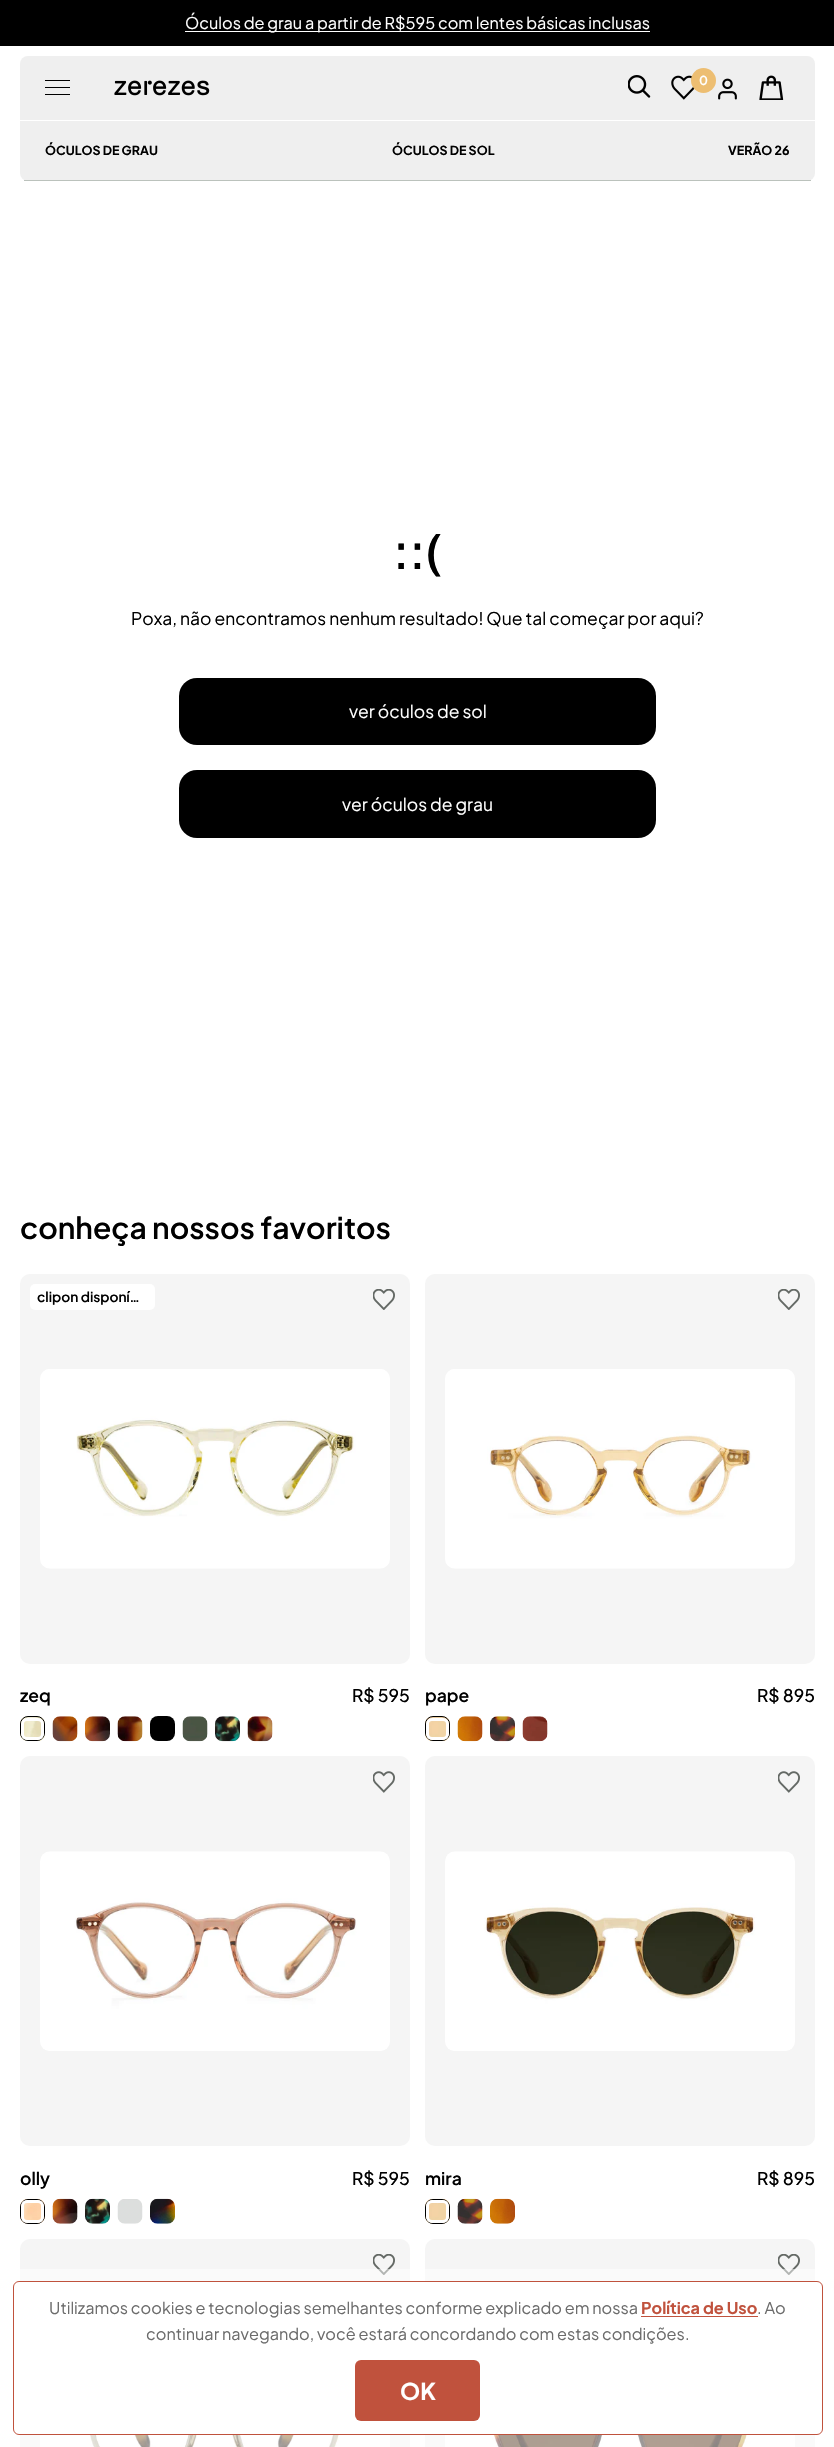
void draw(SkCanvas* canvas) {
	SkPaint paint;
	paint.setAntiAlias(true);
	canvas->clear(0xffffffff);
	paint.setColor(0xff000000);
	canvas->drawRect(SkRect::MakeXYWH(0, 0, 834, 46), paint);
	paint.setColor(0xffffffff);
	canvas->drawRect(SkRect::MakeXYWH(185, 31, 465, 1), paint);
	SkFont f1(fontMgr->matchFamilyStyle("Plus Jakarta Sans", SkFontStyle::Normal()), 16.25);
	f1.setSubpixel(true);
	canvas->drawString("Óculos de grau a partir de R$595 com lentes básicas inclusas", 185, 29, f1, paint);
	paint.setColor(0xffefefef);
	canvas->drawRoundRect(SkRect::MakeXYWH(20, 56, 795, 125), 8, 8, paint);
	paint.setColor(0xffbbc2bc);
	canvas->drawRect(SkRect::MakeXYWH(24, 180, 787, 1), paint);
	paint.setColor(0xff000000);
	canvas->drawRect(SkRect::MakeXYWH(45, 80, 25, 1), paint);
	canvas->drawRect(SkRect::MakeXYWH(45, 87, 25, 1), paint);
	canvas->drawRect(SkRect::MakeXYWH(45, 94, 25, 1), paint);
	canvas->drawImageRect(SkImages::DeferredFromEncodedData(SkData::MakeFromFileName("img1.png")), SkRect::MakeXYWH(114, 80, 96, 16), SkSamplingOptions());
	canvas->drawImageRect(SkImages::DeferredFromEncodedData(SkData::MakeFromFileName("img2.png")), SkRect::MakeXYWH(628, 75, 23, 23), SkSamplingOptions());
	canvas->drawImageRect(SkImages::DeferredFromEncodedData(SkData::MakeFromFileName("img3.png")), SkRect::MakeXYWH(671, 75, 24, 25), SkSamplingOptions());
	paint.setColor(0xffedbe72);
	canvas->drawCircle(703.5, 80.5, 12.5, paint);
	SkFont f2(fontMgr->matchFamilyStyle("Plus Jakarta Sans", SkFontStyle(600, SkFontStyle::kNormal_Width, SkFontStyle::kUpright_Slant)), 12.5);
	f2.setSubpixel(true);
	paint.setColor(0xffffffff);
	canvas->drawString("0", 699, 85, f2, paint);
	canvas->drawImageRect(SkImages::DeferredFromEncodedData(SkData::MakeFromFileName("img4.png")), SkRect::MakeXYWH(718, 78, 19, 22), SkSamplingOptions());
	canvas->drawImageRect(SkImages::DeferredFromEncodedData(SkData::MakeFromFileName("img5.png")), SkRect::MakeXYWH(759, 75, 25, 25), SkSamplingOptions());
	canvas->drawRect(SkRect::MakeXYWH(20, 120, 795, 1), paint);
	SkFont f3(fontMgr->matchFamilyStyle("Plus Jakarta Sans", SkFontStyle::Bold()), 12.5);
	f3.setSubpixel(true);
	paint.setColor(0xff000000);
	canvas->drawString("ÓCULOS DE GRAU", 45, 155, f3, paint);
	canvas->drawString("ÓCULOS DE SOL", 392, 155, f3, paint);
	canvas->drawString("VERÃO 26", 728, 155, f3, paint);
	SkFont f4(fontMgr->matchFamilyStyle("Plus Jakarta Sans", SkFontStyle(600, SkFontStyle::kNormal_Width, SkFontStyle::kUpright_Slant)), 47);
	f4.setSubpixel(true);
	canvas->drawString("::(", 393, 569, f4, paint);
	SkFont f5(fontMgr->matchFamilyStyle("Plus Jakarta Sans", SkFontStyle::Normal()), 17.5);
	f5.setSubpixel(true);
	canvas->drawString("Poxa, não encontramos nenhum resultado! Que tal começar por aqui?", 131, 625, f5, paint);
	canvas->drawRoundRect(SkRect::MakeXYWH(179, 678, 477, 67), 18, 18, paint);
	paint.setColor(0xffffffff);
	canvas->drawString("ver óculos de sol", 349, 718, f5, paint);
	paint.setColor(0xff000000);
	canvas->drawRoundRect(SkRect::MakeXYWH(179, 770, 477, 68), 18, 18, paint);
	paint.setColor(0xffffffff);
	canvas->drawString("ver óculos de grau", 342, 811, f5, paint);
	SkFont f6(fontMgr->matchFamilyStyle("Plus Jakarta Sans", SkFontStyle(600, SkFontStyle::kNormal_Width, SkFontStyle::kUpright_Slant)), 30);
	f6.setSubpixel(true);
	paint.setColor(0xff000000);
	canvas->drawString("conheça nossos favoritos", 20, 1239, f6, paint);
	paint.setColor(0xfff5f5f5);
	canvas->drawRoundRect(SkRect::MakeXYWH(20, 1274, 390, 390), 10, 10, paint);
	paint.setColor(0xffffffff);
	canvas->drawRoundRect(SkRect::MakeXYWH(30, 1284, 125, 26), 5, 5, paint);
	SkFont f7(fontMgr->matchFamilyStyle("Plus Jakarta Sans", SkFontStyle(600, SkFontStyle::kNormal_Width, SkFontStyle::kUpright_Slant)), 13.75);
	f7.setSubpixel(true);
	paint.setColor(0xff000000);
	canvas->drawString("clipon disponí…", 37, 1302, f7, paint);
	canvas->drawImageRect(SkImages::DeferredFromEncodedData(SkData::MakeFromFileName("img6.png")), SkRect::MakeXYWH(373, 1289, 22, 21), SkSamplingOptions());
	canvas->drawImageRect(SkImages::DeferredFromEncodedData(SkData::MakeFromFileName("img7.png")), SkRect::MakeXYWH(40, 1369, 350, 200), SkSamplingOptions());
	SkFont f8(fontMgr->matchFamilyStyle("Plus Jakarta Sans", SkFontStyle(600, SkFontStyle::kNormal_Width, SkFontStyle::kUpright_Slant)), 17.5);
	f8.setSubpixel(true);
	canvas->drawString("zeq", 20, 1702, f8, paint);
	SkFont f9(fontMgr->matchFamilyStyle("Plus Jakarta Sans", SkFontStyle(500, SkFontStyle::kNormal_Width, SkFontStyle::kUpright_Slant)), 17.5);
	f9.setSubpixel(true);
	canvas->drawString("R$ 595", 352, 1702, f9, paint);
	canvas->drawImageRect(SkImages::DeferredFromEncodedData(SkData::MakeFromFileName("img8.png")), SkRect::MakeXYWH(20, 1716, 25, 26), SkSamplingOptions());
	paint.setStroke(true);
	paint.setStrokeWidth(1);
	canvas->drawRoundRect(SkRect::MakeXYWH(20.5, 1716.5, 24, 24), 7.5, 7.5, paint);
	paint.setStrokeWidth(3);
	paint.setColor(0xffffffff);
	canvas->drawRoundRect(SkRect::MakeXYWH(22.5, 1719.5, 20, 19), 4.5, 4.5, paint);
	canvas->drawImageRect(SkImages::DeferredFromEncodedData(SkData::MakeFromFileName("img9.png")), SkRect::MakeXYWH(52, 1716, 26, 26), SkSamplingOptions());
	canvas->drawImageRect(SkImages::DeferredFromEncodedData(SkData::MakeFromFileName("img10.png")), SkRect::MakeXYWH(85, 1716, 25, 26), SkSamplingOptions());
	canvas->drawImageRect(SkImages::DeferredFromEncodedData(SkData::MakeFromFileName("img11.png")), SkRect::MakeXYWH(117, 1716, 26, 26), SkSamplingOptions());
	paint.setStroke(false);
	paint.setColor(0xff000000);
	canvas->drawRoundRect(SkRect::MakeXYWH(150, 1716, 25, 25), 8, 8, paint);
	canvas->drawImageRect(SkImages::DeferredFromEncodedData(SkData::MakeFromFileName("img12.png")), SkRect::MakeXYWH(182, 1716, 26, 26), SkSamplingOptions());
	canvas->drawImageRect(SkImages::DeferredFromEncodedData(SkData::MakeFromFileName("img13.png")), SkRect::MakeXYWH(215, 1716, 25, 26), SkSamplingOptions());
	canvas->drawImageRect(SkImages::DeferredFromEncodedData(SkData::MakeFromFileName("img14.png")), SkRect::MakeXYWH(247, 1716, 26, 26), SkSamplingOptions());
	paint.setColor(0xfff5f5f5);
	canvas->drawRoundRect(SkRect::MakeXYWH(425, 1274, 390, 390), 10, 10, paint);
	canvas->drawImageRect(SkImages::DeferredFromEncodedData(SkData::MakeFromFileName("img6.png")), SkRect::MakeXYWH(778, 1289, 22, 21), SkSamplingOptions());
	canvas->drawImageRect(SkImages::DeferredFromEncodedData(SkData::MakeFromFileName("img15.png")), SkRect::MakeXYWH(445, 1369, 350, 200), SkSamplingOptions());
	paint.setColor(0xff000000);
	canvas->drawString("pape", 425, 1702, f8, paint);
	canvas->drawString("R$ 895", 757, 1702, f9, paint);
	canvas->drawImageRect(SkImages::DeferredFromEncodedData(SkData::MakeFromFileName("img16.png")), SkRect::MakeXYWH(425, 1716, 25, 26), SkSamplingOptions());
	paint.setStroke(true);
	paint.setStrokeWidth(1);
	canvas->drawRoundRect(SkRect::MakeXYWH(425.5, 1716.5, 24, 24), 7.5, 7.5, paint);
	paint.setStrokeWidth(3);
	paint.setColor(0xffffffff);
	canvas->drawRoundRect(SkRect::MakeXYWH(427.5, 1719.5, 20, 19), 4.5, 4.5, paint);
	canvas->drawImageRect(SkImages::DeferredFromEncodedData(SkData::MakeFromFileName("img17.png")), SkRect::MakeXYWH(457, 1716, 26, 26), SkSamplingOptions());
	canvas->drawImageRect(SkImages::DeferredFromEncodedData(SkData::MakeFromFileName("img18.png")), SkRect::MakeXYWH(490, 1716, 25, 26), SkSamplingOptions());
	canvas->drawImageRect(SkImages::DeferredFromEncodedData(SkData::MakeFromFileName("img19.png")), SkRect::MakeXYWH(522, 1716, 26, 26), SkSamplingOptions());
	paint.setStroke(false);
	paint.setColor(0xfff5f5f5);
	canvas->drawRoundRect(SkRect::MakeXYWH(20, 1756, 390, 390), 10, 10, paint);
	canvas->drawImageRect(SkImages::DeferredFromEncodedData(SkData::MakeFromFileName("img20.png")), SkRect::MakeXYWH(373, 1771, 22, 22), SkSamplingOptions());
	canvas->drawImageRect(SkImages::DeferredFromEncodedData(SkData::MakeFromFileName("img21.png")), SkRect::MakeXYWH(40, 1851, 350, 200), SkSamplingOptions());
	paint.setColor(0xff000000);
	canvas->drawString("olly", 20, 2185, f8, paint);
	canvas->drawString("R$ 595", 352, 2185, f9, paint);
	canvas->drawImageRect(SkImages::DeferredFromEncodedData(SkData::MakeFromFileName("img22.png")), SkRect::MakeXYWH(20, 2198, 25, 26), SkSamplingOptions());
	paint.setStroke(true);
	paint.setStrokeWidth(1);
	canvas->drawRoundRect(SkRect::MakeXYWH(20.5, 2199.5, 24, 24), 7.5, 7.5, paint);
	paint.setStrokeWidth(3);
	paint.setColor(0xffffffff);
	canvas->drawRoundRect(SkRect::MakeXYWH(22.5, 2201.5, 20, 20), 4.5, 4.5, paint);
	canvas->drawImageRect(SkImages::DeferredFromEncodedData(SkData::MakeFromFileName("img23.png")), SkRect::MakeXYWH(52, 2198, 26, 26), SkSamplingOptions());
	canvas->drawImageRect(SkImages::DeferredFromEncodedData(SkData::MakeFromFileName("img24.png")), SkRect::MakeXYWH(85, 2198, 25, 26), SkSamplingOptions());
	canvas->drawImageRect(SkImages::DeferredFromEncodedData(SkData::MakeFromFileName("img25.png")), SkRect::MakeXYWH(117, 2199, 26, 25), SkSamplingOptions());
	canvas->drawImageRect(SkImages::DeferredFromEncodedData(SkData::MakeFromFileName("img26.png")), SkRect::MakeXYWH(150, 2198, 25, 26), SkSamplingOptions());
	paint.setStroke(false);
	paint.setColor(0xfff5f5f5);
	canvas->drawRoundRect(SkRect::MakeXYWH(425, 1756, 390, 390), 10, 10, paint);
	canvas->drawImageRect(SkImages::DeferredFromEncodedData(SkData::MakeFromFileName("img20.png")), SkRect::MakeXYWH(778, 1771, 22, 22), SkSamplingOptions());
	canvas->drawImageRect(SkImages::DeferredFromEncodedData(SkData::MakeFromFileName("img27.png")), SkRect::MakeXYWH(445, 1851, 350, 200), SkSamplingOptions());
	paint.setColor(0xff000000);
	canvas->drawString("mira", 425, 2185, f8, paint);
	canvas->drawString("R$ 895", 757, 2185, f9, paint);
	canvas->drawImageRect(SkImages::DeferredFromEncodedData(SkData::MakeFromFileName("img28.png")), SkRect::MakeXYWH(425, 2198, 25, 26), SkSamplingOptions());
	paint.setStroke(true);
	paint.setStrokeWidth(1);
	canvas->drawRoundRect(SkRect::MakeXYWH(425.5, 2199.5, 24, 24), 7.5, 7.5, paint);
	paint.setStrokeWidth(3);
	paint.setColor(0xffffffff);
	canvas->drawRoundRect(SkRect::MakeXYWH(427.5, 2201.5, 20, 20), 4.5, 4.5, paint);
	canvas->drawImageRect(SkImages::DeferredFromEncodedData(SkData::MakeFromFileName("img29.png")), SkRect::MakeXYWH(457, 2198, 26, 26), SkSamplingOptions());
	canvas->drawImageRect(SkImages::DeferredFromEncodedData(SkData::MakeFromFileName("img30.png")), SkRect::MakeXYWH(490, 2198, 25, 26), SkSamplingOptions());
	paint.setStroke(false);
	paint.setColor(0xfff5f5f5);
	canvas->drawRoundRect(SkRect::MakeXYWH(20, 2239, 390, 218), 10, 10, paint);
	canvas->drawImageRect(SkImages::DeferredFromEncodedData(SkData::MakeFromFileName("img6.png")), SkRect::MakeXYWH(373, 2254, 22, 21), SkSamplingOptions());
	canvas->drawImageRect(SkImages::DeferredFromEncodedData(SkData::MakeFromFileName("img31.png")), SkRect::MakeXYWH(40, 2435, 350, 12), SkSamplingOptions());
	canvas->drawRoundRect(SkRect::MakeXYWH(425, 2239, 390, 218), 10, 10, paint);
	canvas->drawImageRect(SkImages::DeferredFromEncodedData(SkData::MakeFromFileName("img6.png")), SkRect::MakeXYWH(778, 2254, 22, 21), SkSamplingOptions());
	canvas->drawImageRect(SkImages::DeferredFromEncodedData(SkData::MakeFromFileName("img32.png")), SkRect::MakeXYWH(445, 2435, 350, 12), SkSamplingOptions());
	paint.setColor(0x80ffffff);
	canvas->drawRect(SkRect::MakeXYWH(20, 2269, 795, 178), paint);
	paint.setColor(0xffffffff);
	canvas->drawRoundRect(SkRect::MakeXYWH(13.5, 2281.5, 809, 153), 5.5, 5.5, paint);
	paint.setStroke(true);
	paint.setStrokeWidth(1);
	paint.setColor(0xffc0523d);
	canvas->drawRoundRect(SkRect::MakeXYWH(13.5, 2281.5, 809, 153), 5.5, 5.5, paint);
	paint.setStroke(false);
	paint.setColor(0xff6c6c6c);
	canvas->drawString("Utilizamos cookies e tecnologias semelhantes conforme explicado em nossa", 49, 2314, f1, paint);
	SkFont f10(fontMgr->matchFamilyStyle("Plus Jakarta Sans", SkFontStyle::Bold()), 16.25);
	f10.setSubpixel(true);
	paint.setColor(0xffc0523d);
	canvas->drawString("Política de Uso", 641, 2314, f10, paint);
	canvas->drawRect(SkRect::MakeXYWH(641, 2316, 117, 1), paint);
	paint.setColor(0xff6c6c6c);
	canvas->drawString(". Ao", 757, 2314, f1, paint);
	canvas->drawString("continuar navegando, você estará concordando com estas condições.", 146, 2340, f1, paint);
	paint.setColor(0xffc0523d);
	canvas->drawRoundRect(SkRect::MakeXYWH(355, 2360, 125, 61), 6, 6, paint);
	SkFont f11(fontMgr->matchFamilyStyle("Plus Jakarta Sans", SkFontStyle::Bold()), 23);
	f11.setSubpixel(true);
	paint.setColor(0xffffffff);
	canvas->drawString("OK", 400, 2400, f11, paint);
}
